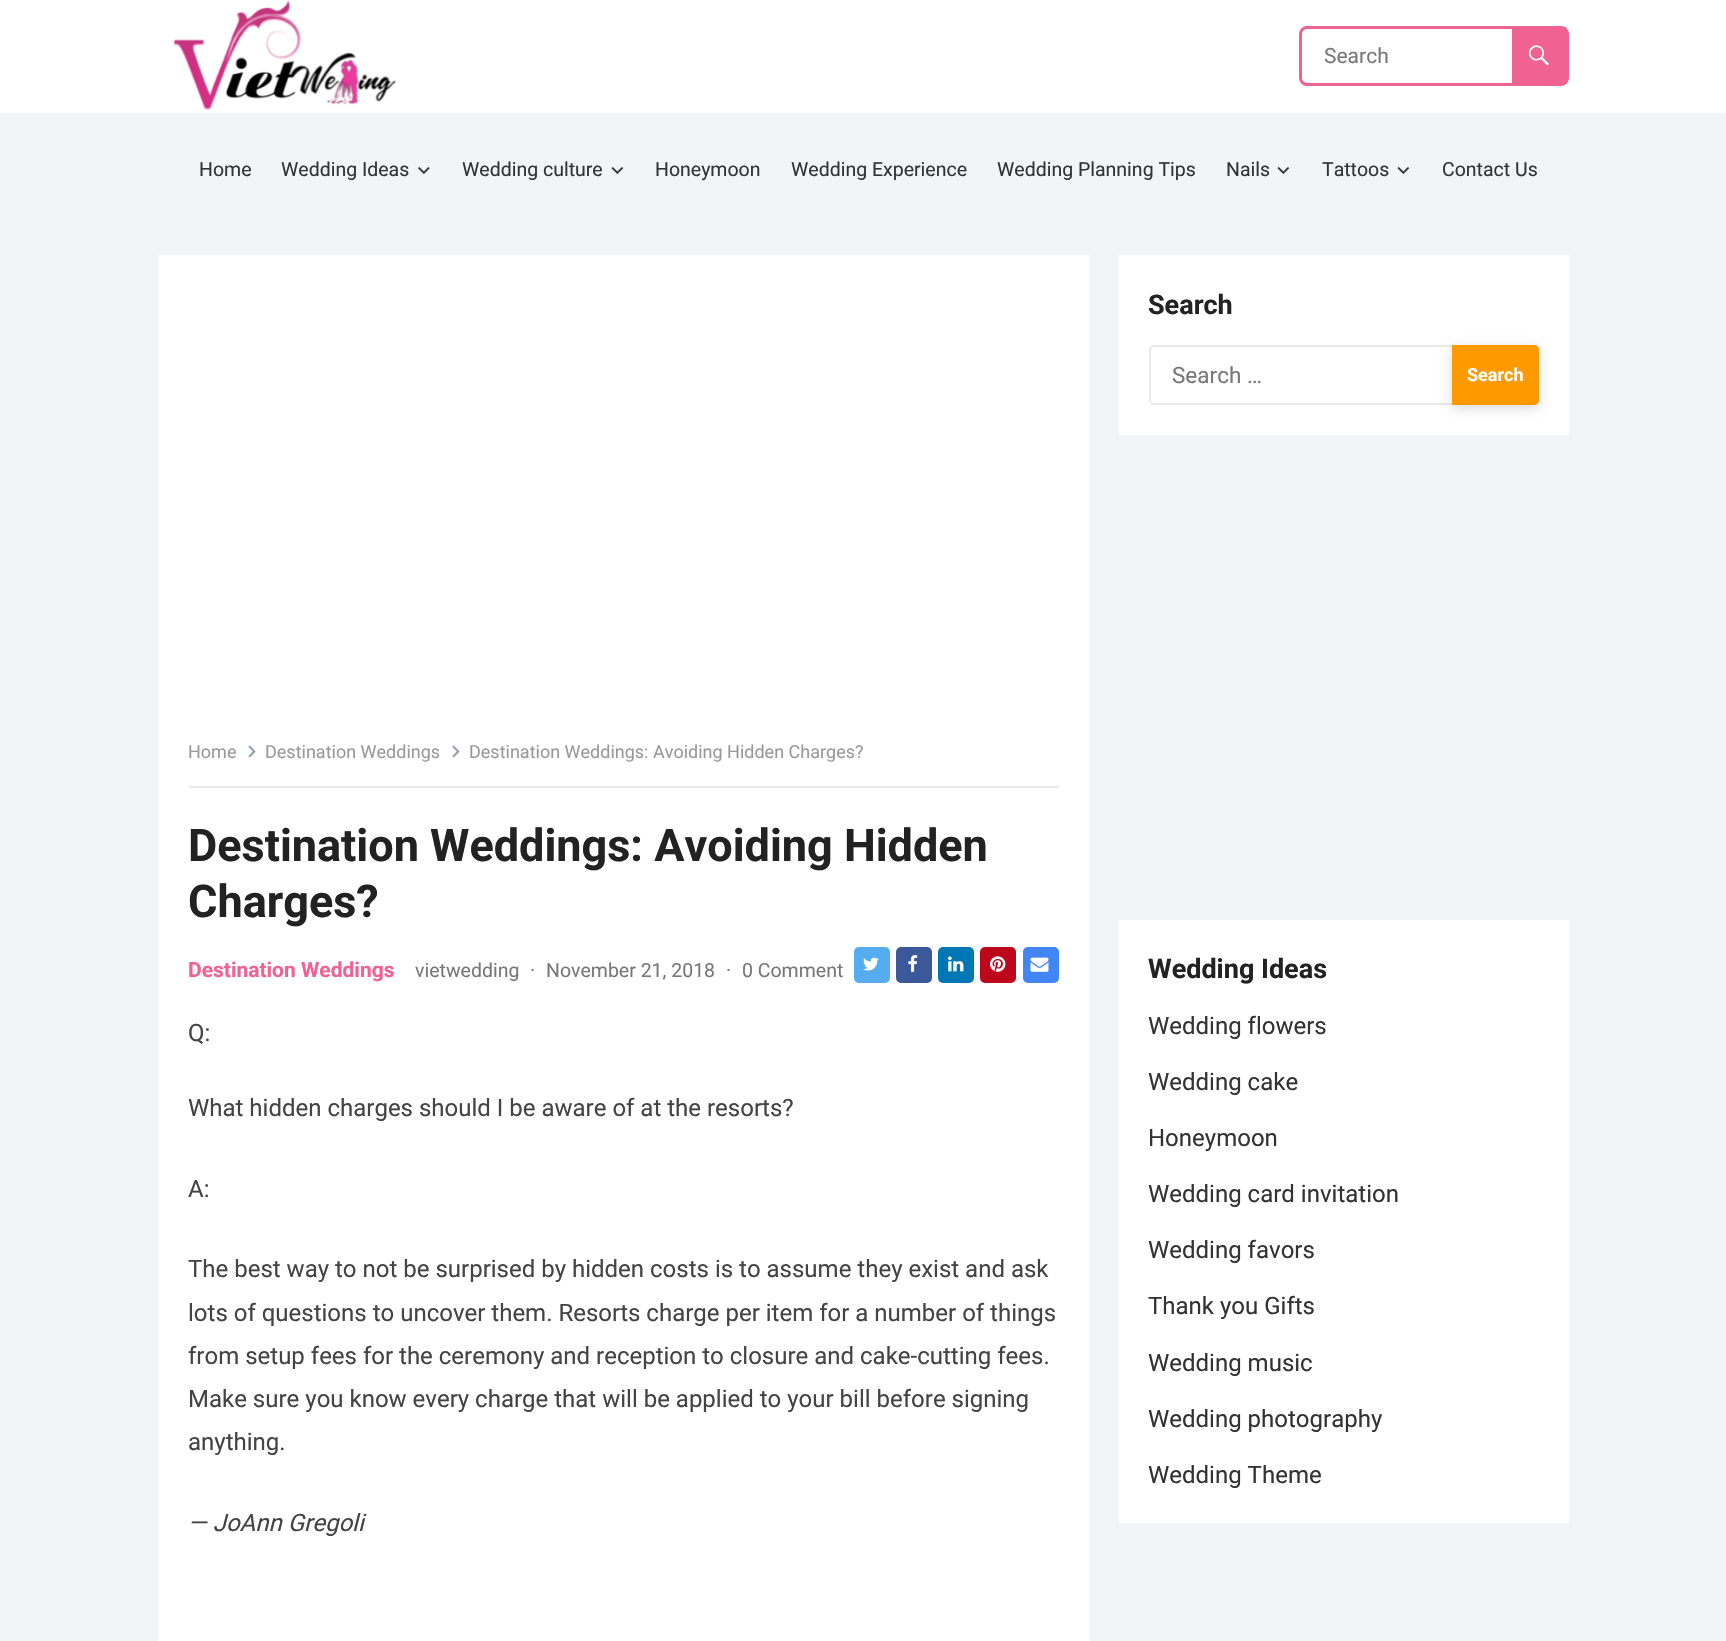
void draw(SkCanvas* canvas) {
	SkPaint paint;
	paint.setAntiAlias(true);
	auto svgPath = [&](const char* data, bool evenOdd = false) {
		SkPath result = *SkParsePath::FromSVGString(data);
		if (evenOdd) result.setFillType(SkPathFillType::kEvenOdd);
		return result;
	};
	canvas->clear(0xfff3f4f5);
	paint.setColor(0xffffffff);
	canvas->drawRect(SkRect::MakeXYWH(0, 0, 1726, 113), paint);
	canvas->drawImageRect(SkImages::DeferredFromEncodedData(SkData::MakeFromFileName("img1.png")), SkRect::MakeXYWH(173, 0, 223, 111), SkSamplingOptions());
	paint.setStroke(true);
	paint.setStrokeWidth(3);
	paint.setColor(0xfff06292);
	canvas->drawRoundRect(SkRect::MakeXYWH(1300.5, 27.5, 267, 57), 6.5, 6.5, paint);
	SkFont f1(fontMgr->matchFamilyStyle("Roboto", SkFontStyle::Normal()), 21);
	f1.setSubpixel(true);
	paint.setStroke(false);
	paint.setColor(0xff777777);
	canvas->drawString("Search", 1324, 63, f1, paint);
	paint.setColor(0xfff06292);
	canvas->drawRect(SkRect::MakeXYWH(1512, 27, 54, 56), paint);
	canvas->drawImageRect(SkImages::DeferredFromEncodedData(SkData::MakeFromFileName("img2.png")), SkRect::MakeXYWH(1528, 45, 21, 21), SkSamplingOptions());
	SkFont f2(fontMgr->matchFamilyStyle("Roboto", SkFontStyle::Normal()), 19.5);
	f2.setSubpixel(true);
	paint.setColor(0xff333333);
	canvas->drawString("Home", 199, 176, f2, paint);
	canvas->drawString("Wedding Ideas", 281, 176, f2, paint);
	canvas->drawImageRect(SkImages::DeferredFromEncodedData(SkData::MakeFromFileName("img3.png")), SkRect::MakeXYWH(418, 167, 12, 7), SkSamplingOptions());
	canvas->drawString("Wedding culture", 462, 176, f2, paint);
	canvas->drawImageRect(SkImages::DeferredFromEncodedData(SkData::MakeFromFileName("img4.png")), SkRect::MakeXYWH(611, 167, 13, 7), SkSamplingOptions());
	canvas->drawString("Honeymoon", 655, 176, f2, paint);
	canvas->drawString("Wedding Experience", 791, 176, f2, paint);
	canvas->drawString("Wedding Planning Tips", 997, 176, f2, paint);
	canvas->drawString("Nails", 1226, 176, f2, paint);
	canvas->drawImageRect(SkImages::DeferredFromEncodedData(SkData::MakeFromFileName("img4.png")), SkRect::MakeXYWH(1277, 167, 13, 7), SkSamplingOptions());
	canvas->drawString("Tattoos", 1322, 176, f2, paint);
	canvas->drawImageRect(SkImages::DeferredFromEncodedData(SkData::MakeFromFileName("img4.png")), SkRect::MakeXYWH(1397, 167, 13, 7), SkSamplingOptions());
	canvas->drawString("Contact Us", 1442, 176, f2, paint);
	paint.setColor(0xffffffff);
	canvas->drawRect(SkRect::MakeXYWH(159, 255, 930, 1386), paint);
	paint.setColor(0xffe9e9e9);
	canvas->drawRect(SkRect::MakeXYWH(189, 786, 870, 2), paint);
	SkFont f3(fontMgr->matchFamilyStyle("Roboto", SkFontStyle::Normal()), 18);
	f3.setSubpixel(true);
	paint.setColor(0xff999999);
	canvas->drawString("Home", 188, 758, f3, paint);
	canvas->drawImageRect(SkImages::DeferredFromEncodedData(SkData::MakeFromFileName("img5.png")), SkRect::MakeXYWH(248, 745, 8, 13), SkSamplingOptions());
	canvas->drawString("Destination Weddings", 265, 758, f3, paint);
	canvas->drawImageRect(SkImages::DeferredFromEncodedData(SkData::MakeFromFileName("img6.png")), SkRect::MakeXYWH(452, 745, 8, 13), SkSamplingOptions());
	canvas->drawString("Destination Weddings: Avoiding Hidden Charges?", 469, 758, f3, paint);
	SkFont f4(fontMgr->matchFamilyStyle("Roboto", SkFontStyle::Bold()), 45);
	f4.setSubpixel(true);
	paint.setColor(0xff222222);
	canvas->drawString("Destination Weddings: Avoiding Hidden", 188, 861, f4, paint);
	canvas->drawString("Charges?", 188, 917, f4, paint);
	SkFont f5(fontMgr->matchFamilyStyle("Roboto", SkFontStyle::Bold()), 21);
	f5.setSubpixel(true);
	paint.setColor(0xfff06292);
	canvas->drawString("Destination Weddings", 188, 977, f5, paint);
	paint.setColor(0xff777777);
	canvas->drawString("vietwedding", 415, 977, f2, paint);
	canvas->drawString("·", 530, 977, f2, paint);
	canvas->drawString("November 21, 2018", 546, 977, f2, paint);
	canvas->drawString("·", 726, 977, f2, paint);
	canvas->drawString("0 Comment", 742, 977, f2, paint);
	paint.setColor(0xff55acee);
	canvas->drawRoundRect(SkRect::MakeXYWH(854, 947, 36, 36), 5, 5, paint);
	canvas->drawImageRect(SkImages::DeferredFromEncodedData(SkData::MakeFromFileName("img7.png")), SkRect::MakeXYWH(863, 957, 16, 14), SkSamplingOptions());
	paint.setColor(0xff3b5998);
	canvas->drawRoundRect(SkRect::MakeXYWH(896, 947, 36, 36), 5, 5, paint);
	canvas->drawImageRect(SkImages::DeferredFromEncodedData(SkData::MakeFromFileName("img8.png")), SkRect::MakeXYWH(908, 955, 10, 17), SkSamplingOptions());
	paint.setColor(0xff0077b5);
	canvas->drawRoundRect(SkRect::MakeXYWH(938, 947, 36, 36), 5, 5, paint);
	canvas->drawImageRect(SkImages::DeferredFromEncodedData(SkData::MakeFromFileName("img9.png")), SkRect::MakeXYWH(948, 956, 16, 16), SkSamplingOptions());
	paint.setColor(0xffbd081c);
	canvas->drawRoundRect(SkRect::MakeXYWH(980, 947, 36, 36), 5, 5, paint);
	canvas->drawImageRect(SkImages::DeferredFromEncodedData(SkData::MakeFromFileName("img10.png")), SkRect::MakeXYWH(990, 956, 16, 16), SkSamplingOptions());
	paint.setColor(0xff4285f4);
	canvas->drawRoundRect(SkRect::MakeXYWH(1023, 947, 36, 36), 5, 5, paint);
	canvas->drawImageRect(SkImages::DeferredFromEncodedData(SkData::MakeFromFileName("img11.png")), SkRect::MakeXYWH(1030, 957, 19, 15), SkSamplingOptions());
	SkFont f6(fontMgr->matchFamilyStyle("Roboto", SkFontStyle::Normal()), 24);
	f6.setSubpixel(true);
	paint.setColor(0xff444444);
	canvas->drawString("Q:", 188, 1041, f6, paint);
	canvas->drawString("What hidden charges should I be aware of at the resorts?", 188, 1116, f6, paint);
	canvas->drawString("A:", 188, 1197, f6, paint);
	canvas->drawString("The best way to not be surprised by hidden costs is to assume they exist and ask", 188, 1277, f6, paint);
	canvas->drawString("lots of questions to uncover them. Resorts charge per item for a number of things", 188, 1321, f6, paint);
	canvas->drawString("from setup fees for the ceremony and reception to closure and cake-cutting fees.", 188, 1364, f6, paint);
	canvas->drawString("Make sure you know every charge that will be applied to your bill before signing", 188, 1407, f6, paint);
	canvas->drawString("anything.", 188, 1450, f6, paint);
	SkFont f7(fontMgr->matchFamilyStyle("Roboto", SkFontStyle::Italic()), 24);
	f7.setSubpixel(true);
	canvas->drawString("— JoAnn Gregoli", 188, 1531, f7, paint);
	paint.setColor(0xffffffff);
	canvas->drawRect(SkRect::MakeXYWH(1119, 255, 450, 180), paint);
	SkFont f8(fontMgr->matchFamilyStyle("Roboto", SkFontStyle::Bold()), 27);
	f8.setSubpixel(true);
	paint.setColor(0xff222222);
	canvas->drawString("Search", 1148, 314, f8, paint);
	paint.setStroke(true);
	paint.setStrokeWidth(2);
	paint.setColor(0xffe9e9e9);
	canvas->drawRoundRect(SkRect::MakeXYWH(1150, 346, 388, 58), 4, 4, paint);
	SkFont f9(fontMgr->matchFamilyStyle("Roboto", SkFontStyle::Normal()), 22.5);
	f9.setSubpixel(true);
	paint.setStroke(false);
	paint.setColor(0xff777777);
	canvas->drawString("Search …", 1172, 383, f9, paint);
	paint.setColor(0x26000000);
	paint.setMaskFilter(SkMaskFilter::MakeBlur(kNormal_SkBlurStyle, 6));
	canvas->drawRoundRect(SkRect::MakeXYWH(1452, 348, 87, 60), 5, 5, paint);
	paint.setMaskFilter(nullptr);
	paint.setColor(0xffff9900);
	canvas->drawPath(svgPath("M1452 345H1534C1537 345 1539 347 1539 350V400C1539 403 1537 405 1534 405H1452Z"), paint);
	SkFont f10(fontMgr->matchFamilyStyle("Roboto", SkFontStyle::Bold()), 18);
	f10.setSubpixel(true);
	paint.setColor(0xffffffff);
	canvas->drawString("Search", 1467, 381, f10, paint);
	canvas->drawRect(SkRect::MakeXYWH(1119, 920, 450, 603), paint);
	paint.setColor(0xff222222);
	canvas->drawString("Wedding Ideas", 1148, 978, f8, paint);
	paint.setColor(0xff333333);
	canvas->drawString("Wedding flowers", 1148, 1034, f6, paint);
	canvas->drawString("Wedding cake", 1148, 1090, f6, paint);
	canvas->drawString("Honeymoon", 1148, 1146, f6, paint);
	canvas->drawString("Wedding card invitation", 1148, 1202, f6, paint);
	canvas->drawString("Wedding favors", 1148, 1258, f6, paint);
	canvas->drawString("Thank you Gifts", 1148, 1314, f6, paint);
	canvas->drawString("Wedding music", 1148, 1371, f6, paint);
	canvas->drawString("Wedding photography", 1148, 1427, f6, paint);
	canvas->drawString("Wedding Theme", 1148, 1483, f6, paint);
}
